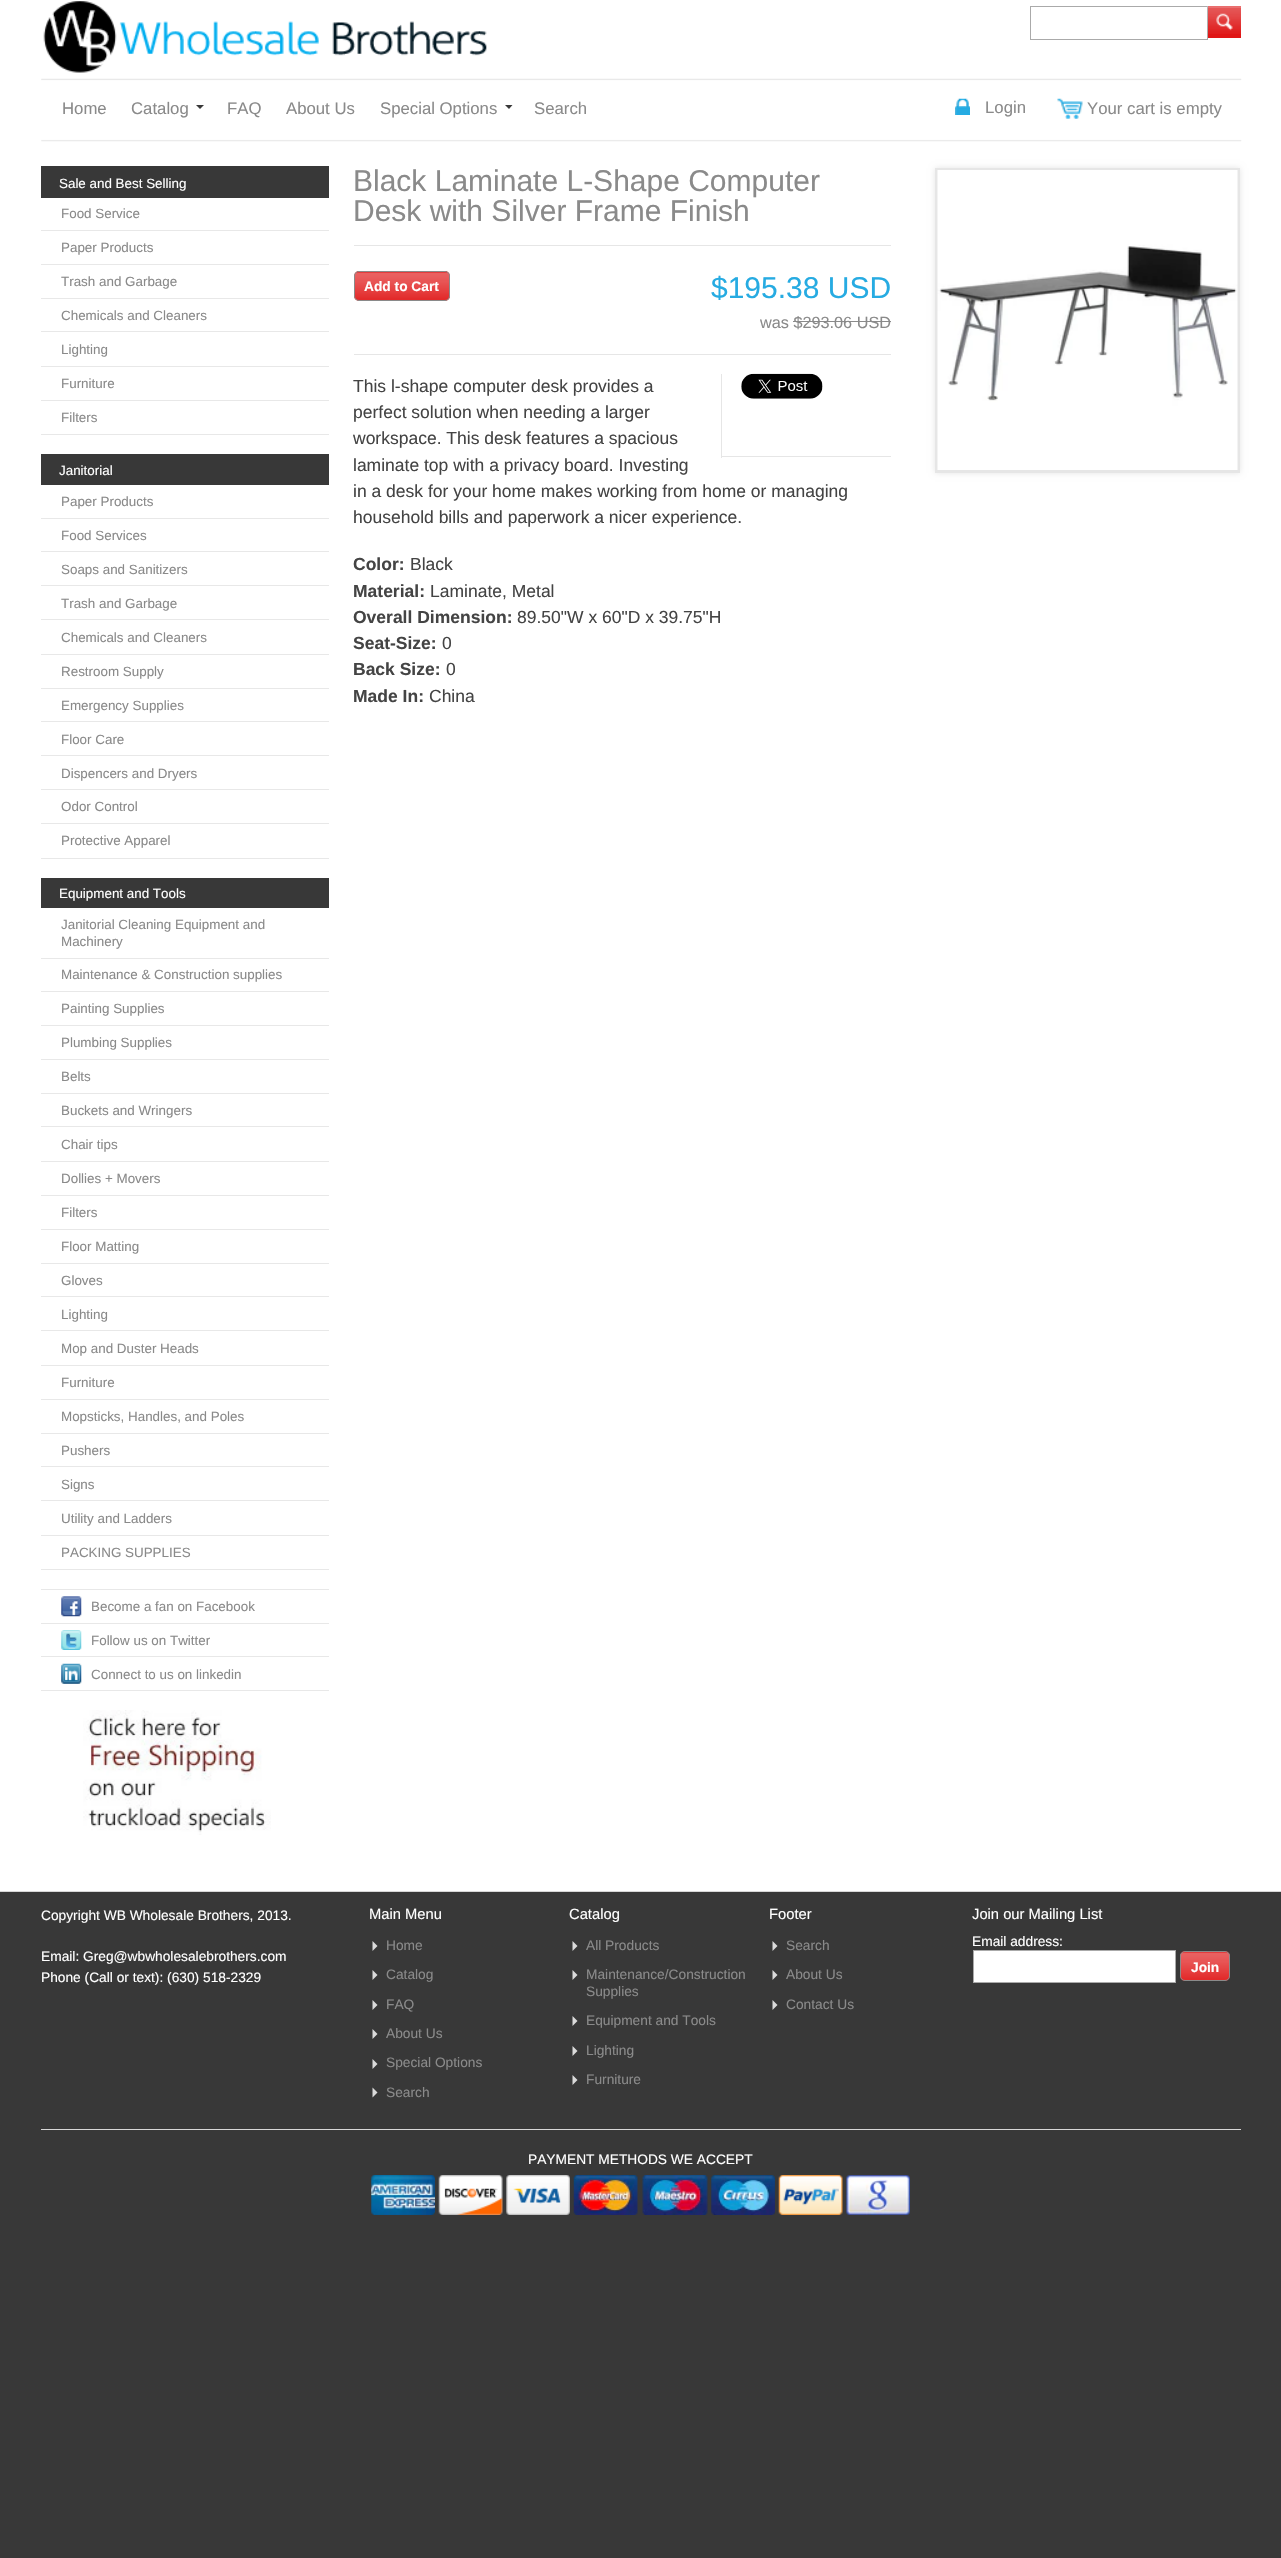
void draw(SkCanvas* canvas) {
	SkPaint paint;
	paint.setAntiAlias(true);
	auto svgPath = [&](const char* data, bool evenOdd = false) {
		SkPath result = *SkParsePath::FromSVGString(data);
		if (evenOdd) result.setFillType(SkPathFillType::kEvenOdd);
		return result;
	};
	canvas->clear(0xff383838);
	paint.setColor(0xffffffff);
	canvas->drawRect(SkRect::MakeXYWH(0, 0, 1281, 1891), paint);
	canvas->drawImageRect(SkImages::DeferredFromEncodedData(SkData::MakeFromFileName("img1.png")), SkRect::MakeXYWH(43, 1, 444, 72), SkSamplingOptions());
	paint.setStroke(true);
	paint.setStrokeWidth(1);
	paint.setColor(0xffaaaaaa);
	canvas->drawRect(SkRect::MakeXYWH(1030.5, 6.5, 177, 33), paint);
	paint.setStroke(false);
	paint.setColor(0xffe01616);
	canvas->drawRect(SkRect::MakeXYWH(1208, 6, 33, 32), paint);
	canvas->drawImageRect(SkImages::DeferredFromEncodedData(SkData::MakeFromFileName("img2.png")), SkRect::MakeXYWH(1207, 6, 34, 28), SkSamplingOptions());
	canvas->drawImageRect(SkImages::DeferredFromEncodedData(SkData::MakeFromFileName("img3.png")), SkRect::MakeXYWH(41, 78, 1201, 64), SkSamplingOptions());
	SkFont f1(fontMgr->matchFamilyStyle("Liberation Sans", SkFontStyle::Normal()), 16.75);
	f1.setSubpixel(true);
	paint.setColor(0xff8a8a8a);
	canvas->drawString("Home", 62, 114, f1, paint);
	canvas->drawString("Catalog", 131, 114, f1, paint);
	paint.setColor(0xff383838);
	canvas->drawPath(svgPath("M196 105H204L200 109Z"), paint);
	paint.setColor(0xff8a8a8a);
	canvas->drawString("FAQ", 227, 114, f1, paint);
	canvas->drawString("About Us", 286, 114, f1, paint);
	canvas->drawString("Special Options", 380, 114, f1, paint);
	paint.setColor(0xff383838);
	canvas->drawPath(svgPath("M505 105H512.5L509 109Z"), paint);
	paint.setColor(0xff8a8a8a);
	canvas->drawString("Search", 534, 114, f1, paint);
	canvas->drawImageRect(SkImages::DeferredFromEncodedData(SkData::MakeFromFileName("img4.png")), SkRect::MakeXYWH(955, 98, 15, 17), SkSamplingOptions());
	canvas->drawString("Login", 985, 113, f1, paint);
	canvas->drawImageRect(SkImages::DeferredFromEncodedData(SkData::MakeFromFileName("img5.png")), SkRect::MakeXYWH(1057, 98, 26, 21), SkSamplingOptions());
	canvas->drawString("Your cart is empty", 1087, 114, f1, paint);
	paint.setColor(0xff383838);
	canvas->drawRect(SkRect::MakeXYWH(41, 166, 288, 32), paint);
	SkFont f2(fontMgr->matchFamilyStyle("Liberation Sans", SkFontStyle::Normal()), 13.4);
	f2.setSubpixel(true);
	paint.setColor(0xffffffff);
	canvas->drawString("Sale and Best Selling", 59, 188, f2, paint);
	paint.setColor(0xffe8e8e8);
	canvas->drawRect(SkRect::MakeXYWH(41, 230, 288, 1), paint);
	paint.setColor(0xff8a8a8a);
	canvas->drawString("Food Service", 61, 218, f2, paint);
	paint.setColor(0xffe8e8e8);
	canvas->drawRect(SkRect::MakeXYWH(41, 264, 288, 1), paint);
	paint.setColor(0xff8a8a8a);
	canvas->drawString("Paper Products", 61, 252, f2, paint);
	paint.setColor(0xffe8e8e8);
	canvas->drawRect(SkRect::MakeXYWH(41, 298, 288, 1), paint);
	paint.setColor(0xff8a8a8a);
	canvas->drawString("Trash and Garbage", 61, 286, f2, paint);
	paint.setColor(0xffe8e8e8);
	canvas->drawRect(SkRect::MakeXYWH(41, 331, 288, 1), paint);
	paint.setColor(0xff8a8a8a);
	canvas->drawString("Chemicals and Cleaners", 61, 320, f2, paint);
	paint.setColor(0xffe8e8e8);
	canvas->drawRect(SkRect::MakeXYWH(41, 366, 288, 1), paint);
	paint.setColor(0xff8a8a8a);
	canvas->drawString("Lighting", 61, 354, f2, paint);
	paint.setColor(0xffe8e8e8);
	canvas->drawRect(SkRect::MakeXYWH(41, 400, 288, 1), paint);
	paint.setColor(0xff8a8a8a);
	canvas->drawString("Furniture", 61, 388, f2, paint);
	paint.setColor(0xffe8e8e8);
	canvas->drawRect(SkRect::MakeXYWH(41, 434, 288, 1), paint);
	paint.setColor(0xff8a8a8a);
	canvas->drawString("Filters", 61, 422, f2, paint);
	paint.setColor(0xff383838);
	canvas->drawRect(SkRect::MakeXYWH(41, 454, 288, 31), paint);
	paint.setColor(0xffffffff);
	canvas->drawString("Janitorial", 59, 475, f2, paint);
	paint.setColor(0xffe8e8e8);
	canvas->drawRect(SkRect::MakeXYWH(41, 518, 288, 1), paint);
	paint.setColor(0xff8a8a8a);
	canvas->drawString("Paper Products", 61, 506, f2, paint);
	paint.setColor(0xffe8e8e8);
	canvas->drawRect(SkRect::MakeXYWH(41, 551, 288, 1), paint);
	paint.setColor(0xff8a8a8a);
	canvas->drawString("Food Services", 61, 540, f2, paint);
	paint.setColor(0xffe8e8e8);
	canvas->drawRect(SkRect::MakeXYWH(41, 585, 288, 1), paint);
	paint.setColor(0xff8a8a8a);
	canvas->drawString("Soaps and Sanitizers", 61, 574, f2, paint);
	paint.setColor(0xffe8e8e8);
	canvas->drawRect(SkRect::MakeXYWH(41, 619, 288, 1), paint);
	paint.setColor(0xff8a8a8a);
	canvas->drawString("Trash and Garbage", 61, 608, f2, paint);
	paint.setColor(0xffe8e8e8);
	canvas->drawRect(SkRect::MakeXYWH(41, 654, 288, 1), paint);
	paint.setColor(0xff8a8a8a);
	canvas->drawString("Chemicals and Cleaners", 61, 642, f2, paint);
	paint.setColor(0xffe8e8e8);
	canvas->drawRect(SkRect::MakeXYWH(41, 688, 288, 1), paint);
	paint.setColor(0xff8a8a8a);
	canvas->drawString("Restroom Supply", 61, 676, f2, paint);
	paint.setColor(0xffe8e8e8);
	canvas->drawRect(SkRect::MakeXYWH(41, 721, 288, 1), paint);
	paint.setColor(0xff8a8a8a);
	canvas->drawString("Emergency Supplies", 61, 710, f2, paint);
	paint.setColor(0xffe8e8e8);
	canvas->drawRect(SkRect::MakeXYWH(41, 755, 288, 1), paint);
	paint.setColor(0xff8a8a8a);
	canvas->drawString("Floor Care", 61, 744, f2, paint);
	paint.setColor(0xffe8e8e8);
	canvas->drawRect(SkRect::MakeXYWH(41, 789, 288, 1), paint);
	paint.setColor(0xff8a8a8a);
	canvas->drawString("Dispencers and Dryers", 61, 778, f2, paint);
	paint.setColor(0xffe8e8e8);
	canvas->drawRect(SkRect::MakeXYWH(41, 823, 288, 1), paint);
	paint.setColor(0xff8a8a8a);
	canvas->drawString("Odor Control", 61, 811, f2, paint);
	paint.setColor(0xffe8e8e8);
	canvas->drawRect(SkRect::MakeXYWH(41, 858, 288, 1), paint);
	paint.setColor(0xff8a8a8a);
	canvas->drawString("Protective Apparel", 61, 845, f2, paint);
	paint.setColor(0xff383838);
	canvas->drawRect(SkRect::MakeXYWH(41, 878, 288, 30), paint);
	paint.setColor(0xffffffff);
	canvas->drawString("Equipment and Tools", 59, 898, f2, paint);
	paint.setColor(0xffe8e8e8);
	canvas->drawRect(SkRect::MakeXYWH(41, 958, 288, 1), paint);
	paint.setColor(0xff8a8a8a);
	canvas->drawString("Janitorial Cleaning Equipment and", 61, 929, f2, paint);
	canvas->drawString("Machinery", 61, 946, f2, paint);
	paint.setColor(0xffe8e8e8);
	canvas->drawRect(SkRect::MakeXYWH(41, 991, 288, 1), paint);
	paint.setColor(0xff8a8a8a);
	canvas->drawString("Maintenance & Construction supplies", 61, 979, f2, paint);
	paint.setColor(0xffe8e8e8);
	canvas->drawRect(SkRect::MakeXYWH(41, 1025, 288, 1), paint);
	paint.setColor(0xff8a8a8a);
	canvas->drawString("Painting Supplies", 61, 1013, f2, paint);
	paint.setColor(0xffe8e8e8);
	canvas->drawRect(SkRect::MakeXYWH(41, 1059, 288, 1), paint);
	paint.setColor(0xff8a8a8a);
	canvas->drawString("Plumbing Supplies", 61, 1047, f2, paint);
	paint.setColor(0xffe8e8e8);
	canvas->drawRect(SkRect::MakeXYWH(41, 1093, 288, 1), paint);
	paint.setColor(0xff8a8a8a);
	canvas->drawString("Belts", 61, 1081, f2, paint);
	paint.setColor(0xffe8e8e8);
	canvas->drawRect(SkRect::MakeXYWH(41, 1126, 288, 1), paint);
	paint.setColor(0xff8a8a8a);
	canvas->drawString("Buckets and Wringers", 61, 1115, f2, paint);
	paint.setColor(0xffe8e8e8);
	canvas->drawRect(SkRect::MakeXYWH(41, 1161, 288, 1), paint);
	paint.setColor(0xff8a8a8a);
	canvas->drawString("Chair tips", 61, 1149, f2, paint);
	paint.setColor(0xffe8e8e8);
	canvas->drawRect(SkRect::MakeXYWH(41, 1195, 288, 1), paint);
	paint.setColor(0xff8a8a8a);
	canvas->drawString("Dollies + Movers", 61, 1183, f2, paint);
	paint.setColor(0xffe8e8e8);
	canvas->drawRect(SkRect::MakeXYWH(41, 1229, 288, 1), paint);
	paint.setColor(0xff8a8a8a);
	canvas->drawString("Filters", 61, 1217, f2, paint);
	paint.setColor(0xffe8e8e8);
	canvas->drawRect(SkRect::MakeXYWH(41, 1263, 288, 1), paint);
	paint.setColor(0xff8a8a8a);
	canvas->drawString("Floor Matting", 61, 1251, f2, paint);
	paint.setColor(0xffe8e8e8);
	canvas->drawRect(SkRect::MakeXYWH(41, 1296, 288, 1), paint);
	paint.setColor(0xff8a8a8a);
	canvas->drawString("Gloves", 61, 1285, f2, paint);
	paint.setColor(0xffe8e8e8);
	canvas->drawRect(SkRect::MakeXYWH(41, 1330, 288, 1), paint);
	paint.setColor(0xff8a8a8a);
	canvas->drawString("Lighting", 61, 1319, f2, paint);
	paint.setColor(0xffe8e8e8);
	canvas->drawRect(SkRect::MakeXYWH(41, 1365, 288, 1), paint);
	paint.setColor(0xff8a8a8a);
	canvas->drawString("Mop and Duster Heads", 61, 1353, f2, paint);
	paint.setColor(0xffe8e8e8);
	canvas->drawRect(SkRect::MakeXYWH(41, 1399, 288, 1), paint);
	paint.setColor(0xff8a8a8a);
	canvas->drawString("Furniture", 61, 1387, f2, paint);
	paint.setColor(0xffe8e8e8);
	canvas->drawRect(SkRect::MakeXYWH(41, 1433, 288, 1), paint);
	paint.setColor(0xff8a8a8a);
	canvas->drawString("Mopsticks, Handles, and Poles", 61, 1421, f2, paint);
	paint.setColor(0xffe8e8e8);
	canvas->drawRect(SkRect::MakeXYWH(41, 1466, 288, 1), paint);
	paint.setColor(0xff8a8a8a);
	canvas->drawString("Pushers", 61, 1455, f2, paint);
	paint.setColor(0xffe8e8e8);
	canvas->drawRect(SkRect::MakeXYWH(41, 1500, 288, 1), paint);
	paint.setColor(0xff8a8a8a);
	canvas->drawString("Signs", 61, 1489, f2, paint);
	paint.setColor(0xffe8e8e8);
	canvas->drawRect(SkRect::MakeXYWH(41, 1535, 288, 1), paint);
	paint.setColor(0xff8a8a8a);
	canvas->drawString("Utility and Ladders", 61, 1523, f2, paint);
	paint.setColor(0xffe8e8e8);
	canvas->drawRect(SkRect::MakeXYWH(41, 1569, 288, 1), paint);
	paint.setColor(0xff8a8a8a);
	canvas->drawString("PACKING SUPPLIES", 61, 1557, f2, paint);
	paint.setColor(0xffe8e8e8);
	canvas->drawRect(SkRect::MakeXYWH(41, 1589, 288, 1), paint);
	canvas->drawImageRect(SkImages::DeferredFromEncodedData(SkData::MakeFromFileName("img6.png")), SkRect::MakeXYWH(61, 1596, 21, 21), SkSamplingOptions());
	canvas->drawRect(SkRect::MakeXYWH(41, 1623, 288, 1), paint);
	paint.setColor(0xff8a8a8a);
	canvas->drawString("Become a fan on Facebook", 91, 1611, f2, paint);
	canvas->drawImageRect(SkImages::DeferredFromEncodedData(SkData::MakeFromFileName("img7.png")), SkRect::MakeXYWH(61, 1630, 21, 20), SkSamplingOptions());
	paint.setColor(0xffe8e8e8);
	canvas->drawRect(SkRect::MakeXYWH(41, 1656, 288, 1), paint);
	paint.setColor(0xff8a8a8a);
	canvas->drawString("Follow us on Twitter", 91, 1645, f2, paint);
	canvas->drawImageRect(SkImages::DeferredFromEncodedData(SkData::MakeFromFileName("img8.png")), SkRect::MakeXYWH(61, 1663, 21, 21), SkSamplingOptions());
	paint.setColor(0xffe8e8e8);
	canvas->drawRect(SkRect::MakeXYWH(41, 1690, 288, 1), paint);
	paint.setColor(0xff8a8a8a);
	canvas->drawString("Connect to us on linkedin", 91, 1679, f2, paint);
	canvas->drawImageRect(SkImages::DeferredFromEncodedData(SkData::MakeFromFileName("img9.png")), SkRect::MakeXYWH(83, 1710, 188, 125), SkSamplingOptions());
	paint.setColor(0xffe6e6e6);
	canvas->drawRect(SkRect::MakeXYWH(354, 245, 537, 1), paint);
	SkFont f3(fontMgr->matchFamilyStyle("Liberation Sans", SkFontStyle::Normal()), 30);
	f3.setSubpixel(true);
	paint.setColor(0xff8a8a8a);
	canvas->drawString("Black Laminate L-Shape Computer", 353, 191, f3, paint);
	canvas->drawString("Desk with Silver Frame Finish", 353, 221, f3, paint);
	paint.setColor(0xffe6e6e6);
	canvas->drawRect(SkRect::MakeXYWH(354, 354, 537, 1), paint);
	paint.setColor(0xffe01616);
	canvas->drawRoundRect(SkRect::MakeXYWH(354, 271, 96, 30), 5, 5, paint);
	canvas->drawImageRect(SkImages::DeferredFromEncodedData(SkData::MakeFromFileName("img10.png")), SkRect::MakeXYWH(354, 272, 96, 29), SkSamplingOptions());
	paint.setStroke(true);
	paint.setColor(0xff8a8a8a);
	canvas->drawRoundRect(SkRect::MakeXYWH(354.5, 271.5, 95, 29), 4.5, 4.5, paint);
	SkFont f4(fontMgr->matchFamilyStyle("Liberation Sans", SkFontStyle::Bold()), 13.75);
	f4.setSubpixel(true);
	paint.setStroke(false);
	paint.setColor(0xffffffff);
	canvas->drawString("Add to Cart", 364, 291, f4, paint);
	paint.setColor(0xff26abe2);
	canvas->drawString("$195.38 USD", 711, 298, f3, paint);
	SkFont f5(fontMgr->matchFamilyStyle("Liberation Sans", SkFontStyle::Normal()), 16.25);
	f5.setSubpixel(true);
	paint.setColor(0xff8a8a8a);
	canvas->drawString("was $293.06 USD", 760, 328, f5, paint);
	canvas->drawRect(SkRect::MakeXYWH(793, 321, 98, 1), paint);
	paint.setColor(0xffe6e6e6);
	canvas->drawRect(SkRect::MakeXYWH(721, 456, 170, 1), paint);
	canvas->drawRect(SkRect::MakeXYWH(721, 374, 1, 84), paint);
	canvas->drawImageRect(SkImages::DeferredFromEncodedData(SkData::MakeFromFileName("img11.png")), SkRect::MakeXYWH(741, 373, 82, 26), SkSamplingOptions());
	SkFont f6(fontMgr->matchFamilyStyle("Liberation Sans", SkFontStyle::Normal()), 17.5);
	f6.setSubpixel(true);
	paint.setColor(0xff444444);
	canvas->drawString("This l-shape computer desk provides a", 353, 392, f6, paint);
	canvas->drawString("perfect solution when needing a larger", 353, 418, f6, paint);
	canvas->drawString("workspace. This desk features a spacious", 353, 444, f6, paint);
	canvas->drawString("laminate top with a privacy board. Investing", 353, 471, f6, paint);
	canvas->drawString("in a desk for your home makes working from home or managing", 353, 497, f6, paint);
	canvas->drawString("household bills and paperwork a nicer experience.", 353, 523, f6, paint);
	SkFont f7(fontMgr->matchFamilyStyle("Liberation Sans", SkFontStyle::Bold()), 17.5);
	f7.setSubpixel(true);
	canvas->drawString("Color:", 353, 570, f7, paint);
	canvas->drawString("Black", 410, 570, f6, paint);
	canvas->drawString("Material:", 353, 597, f7, paint);
	canvas->drawString("Laminate, Metal", 430, 597, f6, paint);
	canvas->drawString("Overall Dimension:", 353, 623, f7, paint);
	canvas->drawString("89.50\"W x 60\"D x 39.75\"H", 517, 623, f6, paint);
	canvas->drawString("Seat-Size:", 353, 649, f7, paint);
	canvas->drawString("0", 442, 649, f6, paint);
	canvas->drawString("Back Size:", 353, 675, f7, paint);
	canvas->drawString("0", 446, 675, f6, paint);
	canvas->drawString("Made In:", 353, 702, f7, paint);
	canvas->drawString("China", 429, 702, f6, paint);
	paint.setColor(0x1a000000);
	paint.setMaskFilter(SkMaskFilter::MakeBlur(kNormal_SkBlurStyle, 3));
	canvas->drawRect(SkRect::MakeXYWH(935, 168, 305, 305), paint);
	paint.setMaskFilter(nullptr);
	paint.setStroke(true);
	paint.setStrokeWidth(3);
	paint.setColor(0xffe6e6e6);
	canvas->drawRect(SkRect::MakeXYWH(936.5, 169.5, 302, 302), paint);
	canvas->drawImageRect(SkImages::DeferredFromEncodedData(SkData::MakeFromFileName("img12.png")), SkRect::MakeXYWH(937, 170, 301, 300), SkSamplingOptions());
	paint.setStroke(false);
	paint.setColor(0xffd7d7d7);
	canvas->drawRect(SkRect::MakeXYWH(0, 1891, 1281, 1), paint);
	SkFont f8(fontMgr->matchFamilyStyle("Liberation Sans", SkFontStyle::Normal()), 13.75);
	f8.setSubpixel(true);
	paint.setColor(0xffffffff);
	canvas->drawString("Copyright WB Wholesale Brothers, 2013.", 41, 1920, f8, paint);
	canvas->drawString("Email: Greg@wbwholesalebrothers.com", 41, 1961, f8, paint);
	canvas->drawString("Phone (Call or text): (630) 518-2329", 41, 1982, f8, paint);
	SkFont f9(fontMgr->matchFamilyStyle("Liberation Sans", SkFontStyle::Normal()), 14.75);
	f9.setSubpixel(true);
	canvas->drawString("Main Menu", 369, 1919, f9, paint);
	paint.setColor(0xffdbdbdb);
	canvas->drawPath(svgPath("M372.5 1951V1941L377.5 1946Z"), paint);
	paint.setColor(0xff8a8a8a);
	canvas->drawString("Home", 386, 1950, f8, paint);
	paint.setColor(0xffdbdbdb);
	canvas->drawPath(svgPath("M372.5 1980V1970L377.5 1975Z"), paint);
	paint.setColor(0xff8a8a8a);
	canvas->drawString("Catalog", 386, 1979, f8, paint);
	paint.setColor(0xffdbdbdb);
	canvas->drawPath(svgPath("M372.5 2010V2000L377.5 2005Z"), paint);
	paint.setColor(0xff8a8a8a);
	canvas->drawString("FAQ", 386, 2009, f8, paint);
	paint.setColor(0xffdbdbdb);
	canvas->drawPath(svgPath("M372.5 2039V2029L377.5 2034Z"), paint);
	paint.setColor(0xff8a8a8a);
	canvas->drawString("About Us", 386, 2038, f8, paint);
	paint.setColor(0xffdbdbdb);
	canvas->drawPath(svgPath("M372.5 2069V2059L377.5 2064Z"), paint);
	paint.setColor(0xff8a8a8a);
	canvas->drawString("Special Options", 386, 2067, f8, paint);
	paint.setColor(0xffdbdbdb);
	canvas->drawPath(svgPath("M372.5 2097.5V2087.5L377.5 2092.5Z"), paint);
	paint.setColor(0xff8a8a8a);
	canvas->drawString("Search", 386, 2097, f8, paint);
	paint.setColor(0xffffffff);
	canvas->drawString("Catalog", 569, 1919, f9, paint);
	paint.setColor(0xffdbdbdb);
	canvas->drawPath(svgPath("M572.5 1951V1941L577.5 1946Z"), paint);
	paint.setColor(0xff8a8a8a);
	canvas->drawString("All Products", 586, 1950, f8, paint);
	paint.setColor(0xffdbdbdb);
	canvas->drawPath(svgPath("M572.5 1980V1970L577.5 1975Z"), paint);
	paint.setColor(0xff8a8a8a);
	canvas->drawString("Maintenance/Construction", 586, 1979, f8, paint);
	canvas->drawString("Supplies", 586, 1996, f8, paint);
	paint.setColor(0xffdbdbdb);
	canvas->drawPath(svgPath("M572.5 2026V2016L577.5 2021Z"), paint);
	paint.setColor(0xff8a8a8a);
	canvas->drawString("Equipment and Tools", 586, 2025, f8, paint);
	paint.setColor(0xffdbdbdb);
	canvas->drawPath(svgPath("M572.5 2056V2046L577.5 2051Z"), paint);
	paint.setColor(0xff8a8a8a);
	canvas->drawString("Lighting", 586, 2055, f8, paint);
	paint.setColor(0xffdbdbdb);
	canvas->drawPath(svgPath("M572.5 2085V2075L577.5 2080Z"), paint);
	paint.setColor(0xff8a8a8a);
	canvas->drawString("Furniture", 586, 2084, f8, paint);
	paint.setColor(0xffffffff);
	canvas->drawString("Footer", 769, 1919, f9, paint);
	paint.setColor(0xffdbdbdb);
	canvas->drawPath(svgPath("M772.5 1951V1941L777.5 1946Z"), paint);
	paint.setColor(0xff8a8a8a);
	canvas->drawString("Search", 786, 1950, f8, paint);
	paint.setColor(0xffdbdbdb);
	canvas->drawPath(svgPath("M772.5 1980V1970L777.5 1975Z"), paint);
	paint.setColor(0xff8a8a8a);
	canvas->drawString("About Us", 786, 1979, f8, paint);
	paint.setColor(0xffdbdbdb);
	canvas->drawPath(svgPath("M772.5 2010V2000L777.5 2005Z"), paint);
	paint.setColor(0xff8a8a8a);
	canvas->drawString("Contact Us", 786, 2009, f8, paint);
	paint.setColor(0xffffffff);
	canvas->drawString("Join our Mailing List", 972, 1919, f9, paint);
	canvas->drawString("Email address:", 972, 1946, f8, paint);
	canvas->drawRect(SkRect::MakeXYWH(973.5, 1950.5, 202, 32), paint);
	paint.setStroke(true);
	paint.setStrokeWidth(1);
	paint.setColor(0xffaaaaaa);
	canvas->drawRect(SkRect::MakeXYWH(973.5, 1950.5, 202, 32), paint);
	paint.setStroke(false);
	paint.setColor(0xffe01616);
	canvas->drawRoundRect(SkRect::MakeXYWH(1180, 1951, 50, 30), 5, 5, paint);
	canvas->drawImageRect(SkImages::DeferredFromEncodedData(SkData::MakeFromFileName("img13.png")), SkRect::MakeXYWH(1180, 1952, 50, 29), SkSamplingOptions());
	paint.setStroke(true);
	paint.setColor(0xff8a8a8a);
	canvas->drawRoundRect(SkRect::MakeXYWH(1180.5, 1951.5, 49, 29), 4.5, 4.5, paint);
	paint.setStroke(false);
	paint.setColor(0xffffffff);
	canvas->drawString("Join", 1191, 1972, f4, paint);
	paint.setColor(0xffd7d7d7);
	canvas->drawRect(SkRect::MakeXYWH(41, 2129, 1200, 1), paint);
	paint.setColor(0xffffffff);
	canvas->drawString("PAYMENT METHODS WE ACCEPT", 528, 2164, f8, paint);
	canvas->drawImageRect(SkImages::DeferredFromEncodedData(SkData::MakeFromFileName("img14.png")), SkRect::MakeXYWH(371, 2175, 64, 40), SkSamplingOptions());
	canvas->drawImageRect(SkImages::DeferredFromEncodedData(SkData::MakeFromFileName("img15.png")), SkRect::MakeXYWH(438, 2175, 65, 40), SkSamplingOptions());
	canvas->drawImageRect(SkImages::DeferredFromEncodedData(SkData::MakeFromFileName("img16.png")), SkRect::MakeXYWH(506, 2175, 64, 40), SkSamplingOptions());
	canvas->drawImageRect(SkImages::DeferredFromEncodedData(SkData::MakeFromFileName("img17.png")), SkRect::MakeXYWH(573, 2175, 65, 40), SkSamplingOptions());
	canvas->drawImageRect(SkImages::DeferredFromEncodedData(SkData::MakeFromFileName("img18.png")), SkRect::MakeXYWH(642, 2175, 66, 40), SkSamplingOptions());
	canvas->drawImageRect(SkImages::DeferredFromEncodedData(SkData::MakeFromFileName("img19.png")), SkRect::MakeXYWH(711, 2175, 64, 40), SkSamplingOptions());
	canvas->drawImageRect(SkImages::DeferredFromEncodedData(SkData::MakeFromFileName("img20.png")), SkRect::MakeXYWH(778, 2175, 65, 40), SkSamplingOptions());
	canvas->drawImageRect(SkImages::DeferredFromEncodedData(SkData::MakeFromFileName("img21.png")), SkRect::MakeXYWH(846, 2175, 64, 40), SkSamplingOptions());
}
